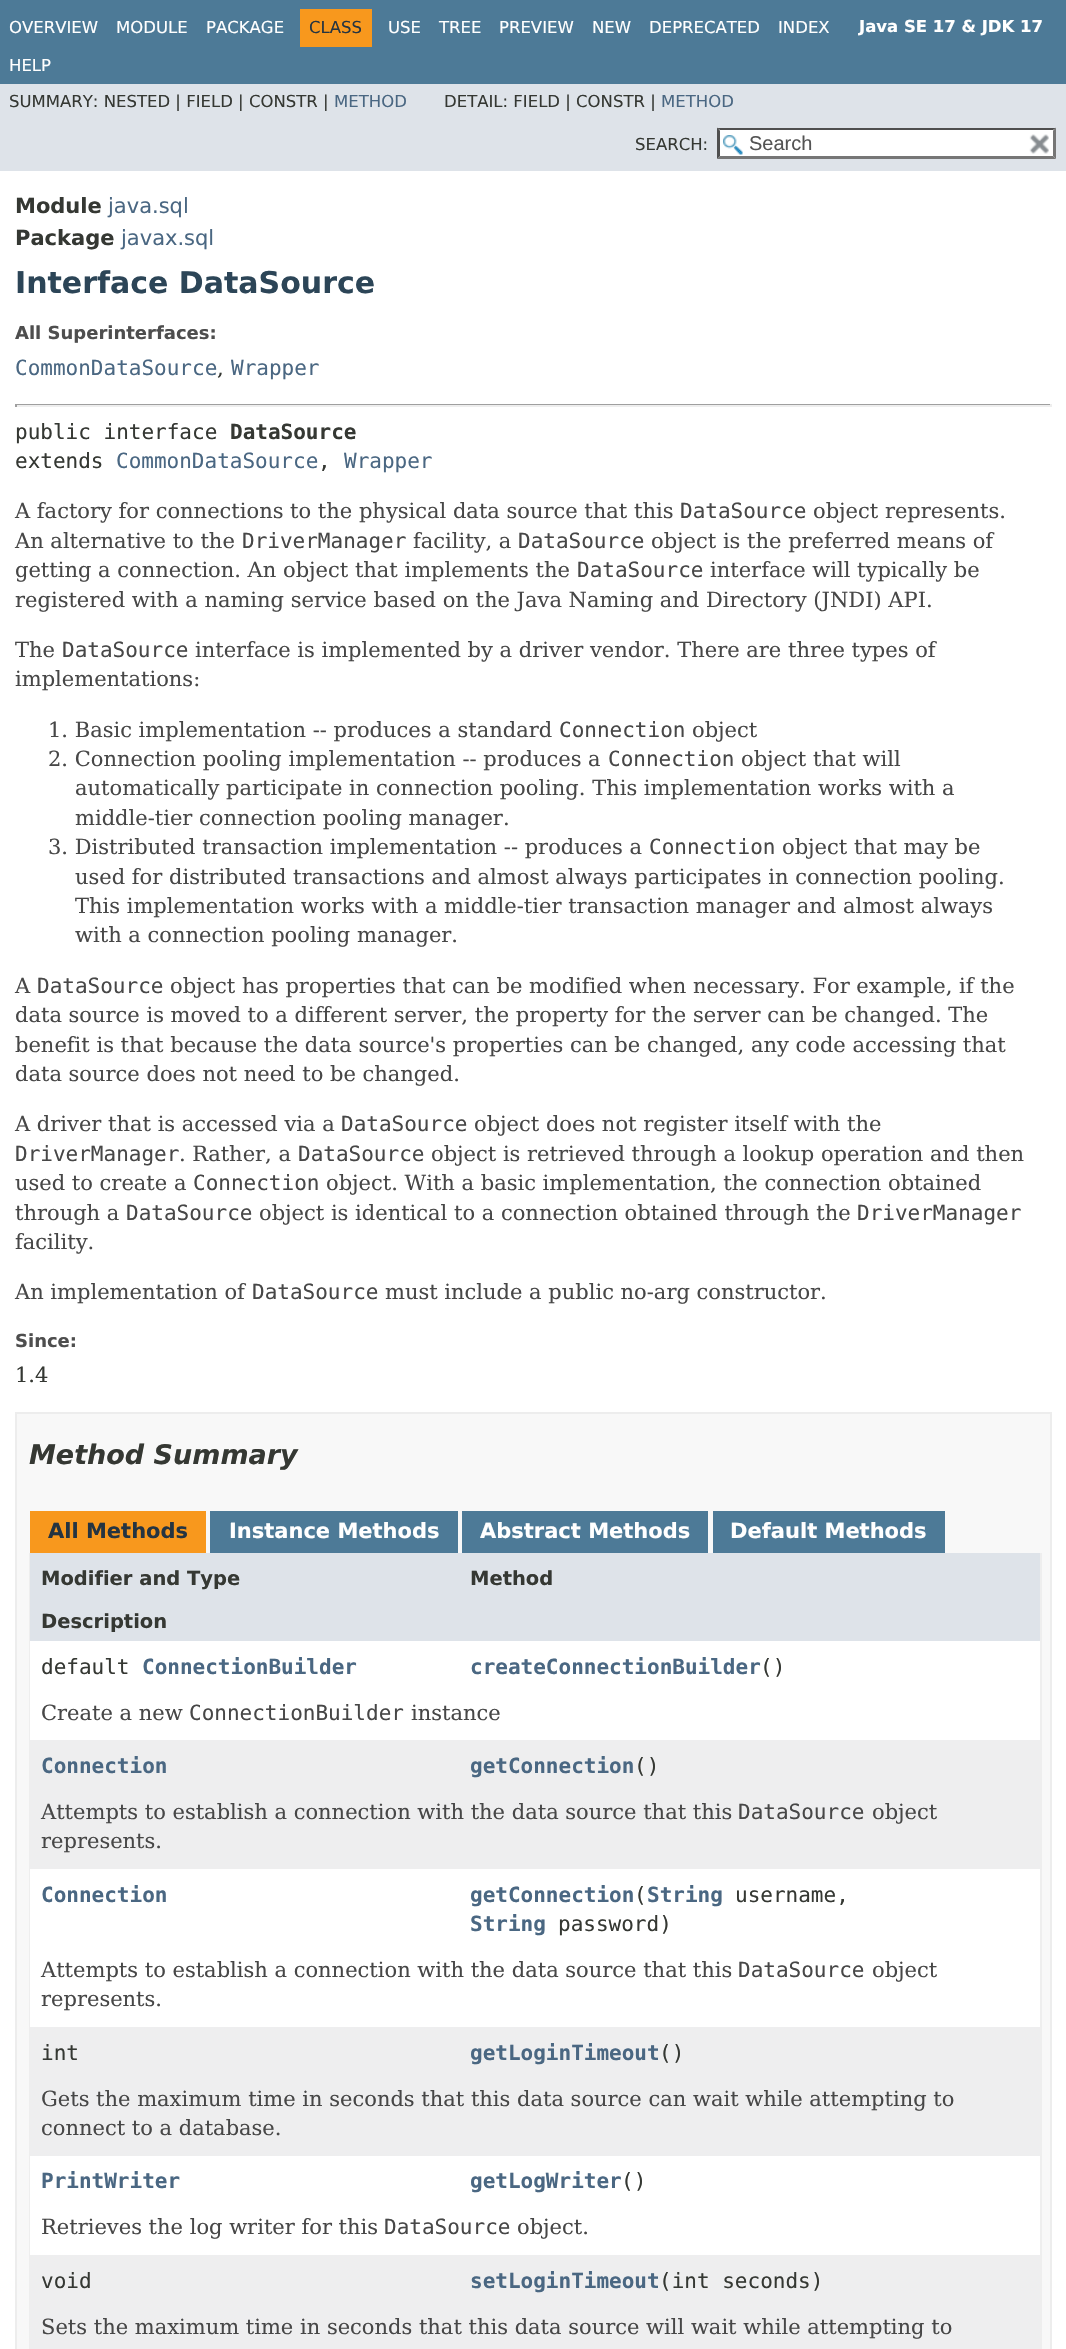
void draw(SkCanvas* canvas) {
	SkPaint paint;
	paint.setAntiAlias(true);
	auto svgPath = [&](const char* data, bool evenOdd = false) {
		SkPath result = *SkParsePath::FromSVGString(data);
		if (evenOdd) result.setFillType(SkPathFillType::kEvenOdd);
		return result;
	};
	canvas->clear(0xffffffff);
	paint.setColor(0xff4d7a97);
	canvas->drawRect(SkRect::MakeXYWH(0, 0, 1066, 84), paint);
	SkFont f1(fontMgr->matchFamilyStyle("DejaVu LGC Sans", SkFontStyle::Normal()), 16.5);
	f1.setSubpixel(true);
	paint.setColor(0xffffffff);
	canvas->drawString("OVERVIEW", 9, 33, f1, paint);
	canvas->drawString("MODULE", 116, 33, f1, paint);
	canvas->drawString("PACKAGE", 206, 33, f1, paint);
	paint.setColor(0xfff8981d);
	canvas->drawRect(SkRect::MakeXYWH(300, 9, 72, 38), paint);
	paint.setColor(0xff253441);
	canvas->drawString("CLASS", 309, 33, f1, paint);
	paint.setColor(0xffffffff);
	canvas->drawString("USE", 388, 33, f1, paint);
	canvas->drawString("TREE", 439, 33, f1, paint);
	canvas->drawString("PREVIEW", 499, 33, f1, paint);
	canvas->drawString("NEW", 592, 33, f1, paint);
	canvas->drawString("DEPRECATED", 649, 33, f1, paint);
	canvas->drawString("INDEX", 778, 33, f1, paint);
	canvas->drawString("HELP", 9, 71, f1, paint);
	SkFont f2(fontMgr->matchFamilyStyle("DejaVu LGC Sans", SkFontStyle::Bold()), 16.5);
	f2.setSubpixel(true);
	canvas->drawString("Java SE 17 & JDK 17", 859, 32, f2, paint);
	paint.setColor(0xffdee3e9);
	canvas->drawRect(SkRect::MakeXYWH(0, 84, 1066, 87), paint);
	paint.setColor(0xff353833);
	canvas->drawString("SUMMARY: NESTED | FIELD | CONSTR |", 9, 107, f1, paint);
	paint.setColor(0xff4a6782);
	canvas->drawString("METHOD", 334, 107, f1, paint);
	paint.setColor(0xff353833);
	canvas->drawString("DETAIL: FIELD | CONSTR |", 444, 107, f1, paint);
	paint.setColor(0xff4a6782);
	canvas->drawString("METHOD", 661, 107, f1, paint);
	paint.setColor(0xff353833);
	canvas->drawString("SEARCH:", 635, 150, f1, paint);
	paint.setColor(0xffffffff);
	canvas->drawRect(SkRect::MakeXYWH(717, 128, 339, 31), paint);
	canvas->drawImageRect(SkImages::DeferredFromEncodedData(SkData::MakeFromFileName("img1.png")), SkRect::MakeXYWH(723, 135, 20, 20), SkSamplingOptions());
	paint.setColor(0xff4f4f4f);
	canvas->drawPath(svgPath("M717 128H1056L1053 130H720Z"), paint);
	paint.setColor(0xff767676);
	canvas->drawPath(svgPath("M1056 127.5V159L1053 156V130.5Z"), paint);
	canvas->drawPath(svgPath("M1056 159H717L720 156H1053Z"), paint);
	paint.setColor(0xff4f4f4f);
	canvas->drawPath(svgPath("M717 159V127.5L720 130.5V156Z"), paint);
	SkFont f3(fontMgr->matchFamilyStyle("Liberation Sans", SkFontStyle::Normal()), 20);
	f3.setSubpixel(true);
	paint.setColor(0xff545454);
	canvas->drawString("Search", 749, 150, f3, paint);
	canvas->drawImageRect(SkImages::DeferredFromEncodedData(SkData::MakeFromFileName("img2.png")), SkRect::MakeXYWH(1029, 134, 20, 20), SkSamplingOptions());
	SkFont f4(fontMgr->matchFamilyStyle("DejaVu LGC Sans", SkFontStyle::Bold()), 21);
	f4.setSubpixel(true);
	paint.setColor(0xff353833);
	canvas->drawString("Module", 15, 213, f4, paint);
	SkFont f5(fontMgr->matchFamilyStyle("DejaVu LGC Sans", SkFontStyle::Normal()), 21);
	f5.setSubpixel(true);
	paint.setColor(0xff4a6782);
	canvas->drawString("java.sql", 108, 213, f5, paint);
	paint.setColor(0xff353833);
	canvas->drawString("Package", 15, 245, f4, paint);
	paint.setColor(0xff4a6782);
	canvas->drawString("javax.sql", 121, 245, f5, paint);
	SkFont f6(fontMgr->matchFamilyStyle("DejaVu LGC Sans", SkFontStyle::Bold()), 30);
	f6.setSubpixel(true);
	paint.setColor(0xff2c4557);
	canvas->drawString("Interface DataSource", 15, 293, f6, paint);
	SkFont f7(fontMgr->matchFamilyStyle("DejaVu LGC Sans", SkFontStyle::Bold()), 18);
	f7.setSubpixel(true);
	paint.setColor(0xff4e4e4e);
	canvas->drawString("All Superinterfaces:", 15, 339, f7, paint);
	SkFont f8(fontMgr->matchFamilyStyle("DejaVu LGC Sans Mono", SkFontStyle::Normal()), 21);
	f8.setSubpixel(true);
	paint.setColor(0xff4a6782);
	canvas->drawString("CommonDataSource", 15, 375, f8, paint);
	SkFont f9(fontMgr->matchFamilyStyle("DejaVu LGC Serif", SkFontStyle::Normal()), 21);
	f9.setSubpixel(true);
	paint.setColor(0xff353833);
	canvas->drawString(",", 217, 375, f9, paint);
	paint.setColor(0xff4a6782);
	canvas->drawString("Wrapper", 231, 375, f8, paint);
	paint.setColor(0xff9f9f9f);
	canvas->drawRect(SkRect::MakeXYWH(15, 404, 1037, 1), paint);
	paint.setColor(0xffeeeeee);
	canvas->drawRect(SkRect::MakeXYWH(1050, 404, 2, 3), paint);
	canvas->drawRect(SkRect::MakeXYWH(15, 405, 1037, 2), paint);
	paint.setColor(0xff9f9f9f);
	canvas->drawRect(SkRect::MakeXYWH(15, 404, 2, 3), paint);
	paint.setColor(0xff353833);
	canvas->drawString("public interface", 15, 439, f8, paint);
	SkFont f10(fontMgr->matchFamilyStyle("DejaVu LGC Sans Mono", SkFontStyle::Bold()), 21);
	f10.setSubpixel(true);
	canvas->drawString("DataSource", 230, 439, f10, paint);
	canvas->drawString("extends", 15, 468, f8, paint);
	paint.setColor(0xff4a6782);
	canvas->drawString("CommonDataSource", 116, 468, f8, paint);
	paint.setColor(0xff353833);
	canvas->drawString(",", 318, 468, f8, paint);
	paint.setColor(0xff4a6782);
	canvas->drawString("Wrapper", 344, 468, f8, paint);
	paint.setColor(0xff474747);
	canvas->drawString("A factory for connections to the physical data source that this", 15, 518, f9, paint);
	canvas->drawString("DataSource", 680, 518, f8, paint);
	canvas->drawString("object represents.", 813, 518, f9, paint);
	canvas->drawString("An alternative to the", 15, 548, f9, paint);
	canvas->drawString("DriverManager", 242, 548, f8, paint);
	canvas->drawString("facility, a", 413, 548, f9, paint);
	canvas->drawString("DataSource", 518, 548, f8, paint);
	canvas->drawString("object is the preferred means of", 651, 548, f9, paint);
	canvas->drawString("getting a connection. An object that implements the", 15, 577, f9, paint);
	canvas->drawString("DataSource", 577, 577, f8, paint);
	canvas->drawString("interface will typically be", 710, 577, f9, paint);
	canvas->drawString("registered with a naming service based on the Java Naming and Directory (JNDI) API.", 15, 607, f9, paint);
	canvas->drawString("The", 15, 657, f9, paint);
	canvas->drawString("DataSource", 62, 657, f8, paint);
	canvas->drawString("interface is implemented by a driver vendor. There are three types of", 195, 657, f9, paint);
	canvas->drawString("implementations:", 15, 686, f9, paint);
	canvas->drawString("1. Basic implementation -- produces a standard", 48, 737, f9, paint);
	canvas->drawString("Connection", 559, 737, f8, paint);
	canvas->drawString("object", 692, 737, f9, paint);
	canvas->drawString("2. Connection pooling implementation -- produces a", 48, 766, f9, paint);
	canvas->drawString("Connection", 608, 766, f8, paint);
	canvas->drawString("object that will", 741, 766, f9, paint);
	canvas->drawString("automatically participate in connection pooling. This implementation works with a", 75, 795, f9, paint);
	canvas->drawString("middle-tier connection pooling manager.", 75, 825, f9, paint);
	canvas->drawString("3. Distributed transaction implementation -- produces a", 48, 854, f9, paint);
	canvas->drawString("Connection", 649, 854, f8, paint);
	canvas->drawString("object that may be", 782, 854, f9, paint);
	canvas->drawString("used for distributed transactions and almost always participates in connection pooling.", 75, 884, f9, paint);
	canvas->drawString("This implementation works with a middle-tier transaction manager and almost always", 75, 913, f9, paint);
	canvas->drawString("with a connection pooling manager.", 75, 942, f9, paint);
	canvas->drawString("A", 15, 993, f9, paint);
	canvas->drawString("DataSource", 37, 993, f8, paint);
	canvas->drawString("object has properties that can be modified when necessary. For example, if the", 170, 993, f9, paint);
	canvas->drawString("data source is moved to a different server, the property for the server can be changed. The", 15, 1022, f9, paint);
	canvas->drawString("benefit is that because the data source's properties can be changed, any code accessing that", 15, 1052, f9, paint);
	canvas->drawString("data source does not need to be changed.", 15, 1081, f9, paint);
	canvas->drawString("A driver that is accessed via a", 15, 1131, f9, paint);
	canvas->drawString("DataSource", 341, 1131, f8, paint);
	canvas->drawString("object does not register itself with the", 474, 1131, f9, paint);
	canvas->drawString("DriverManager", 15, 1161, f8, paint);
	canvas->drawString(". Rather, a", 179, 1161, f9, paint);
	canvas->drawString("DataSource", 298, 1161, f8, paint);
	canvas->drawString("object is retrieved through a lookup operation and then", 431, 1161, f9, paint);
	canvas->drawString("used to create a", 15, 1190, f9, paint);
	canvas->drawString("Connection", 193, 1190, f8, paint);
	canvas->drawString("object. With a basic implementation, the connection obtained", 326, 1190, f9, paint);
	canvas->drawString("through a", 15, 1220, f9, paint);
	canvas->drawString("DataSource", 126, 1220, f8, paint);
	canvas->drawString("object is identical to a connection obtained through the", 259, 1220, f9, paint);
	canvas->drawString("DriverManager", 857, 1220, f8, paint);
	canvas->drawString("facility.", 15, 1249, f9, paint);
	canvas->drawString("An implementation of", 15, 1299, f9, paint);
	canvas->drawString("DataSource", 252, 1299, f8, paint);
	canvas->drawString("must include a public no-arg constructor.", 385, 1299, f9, paint);
	paint.setColor(0xff4e4e4e);
	canvas->drawString("Since:", 15, 1347, f7, paint);
	paint.setColor(0xff353833);
	canvas->drawString("1.4", 15, 1382, f9, paint);
	paint.setColor(0xfff8f8f8);
	canvas->drawRect(SkRect::MakeXYWH(16, 1413, 1035, 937), paint);
	paint.setStroke(true);
	paint.setStrokeWidth(2);
	paint.setColor(0xffededed);
	canvas->drawRect(SkRect::MakeXYWH(16, 1413, 1035, 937), paint);
	SkFont f11(fontMgr->matchFamilyStyle("DejaVu LGC Sans", SkFontStyle::BoldItalic()), 27);
	f11.setSubpixel(true);
	paint.setStroke(false);
	paint.setColor(0xff353833);
	canvas->drawString("Method Summary", 29, 1464, f11, paint);
	paint.setColor(0xfff8981d);
	canvas->drawRect(SkRect::MakeXYWH(30, 1511, 176, 42), paint);
	paint.setColor(0xff253441);
	canvas->drawString("All Methods", 48, 1538, f4, paint);
	paint.setColor(0xff4d7a97);
	canvas->drawRect(SkRect::MakeXYWH(210, 1511, 248, 42), paint);
	paint.setColor(0xffffffff);
	canvas->drawString("Instance Methods", 229, 1538, f4, paint);
	paint.setColor(0xff4d7a97);
	canvas->drawRect(SkRect::MakeXYWH(462, 1511, 246, 42), paint);
	paint.setColor(0xffffffff);
	canvas->drawString("Abstract Methods", 480, 1538, f4, paint);
	paint.setColor(0xff4d7a97);
	canvas->drawRect(SkRect::MakeXYWH(713, 1511, 232, 42), paint);
	paint.setColor(0xffffffff);
	canvas->drawString("Default Methods", 730, 1538, f4, paint);
	paint.setColor(0xffeeeeee);
	canvas->drawRect(SkRect::MakeXYWH(1040, 1553, 2, 796), paint);
	canvas->drawRect(SkRect::MakeXYWH(29, 1553, 1, 796), paint);
	paint.setColor(0xffdee3e9);
	canvas->drawRect(SkRect::MakeXYWH(30, 1553, 1010, 45), paint);
	SkFont f12(fontMgr->matchFamilyStyle("DejaVu LGC Sans", SkFontStyle::Bold()), 19.5);
	f12.setSubpixel(true);
	paint.setColor(0xff353833);
	canvas->drawString("Modifier and Type", 41, 1585, f12, paint);
	canvas->drawString("Method", 470, 1585, f12, paint);
	paint.setColor(0xffdee3e9);
	canvas->drawRect(SkRect::MakeXYWH(30, 1598, 1010, 43), paint);
	paint.setColor(0xff353833);
	canvas->drawString("Description", 41, 1628, f12, paint);
	paint.setColor(0xffffffff);
	canvas->drawRect(SkRect::MakeXYWH(30, 1641, 1010, 45), paint);
	paint.setColor(0xff353833);
	canvas->drawString("default", 41, 1674, f8, paint);
	paint.setColor(0xff4a6782);
	canvas->drawString("ConnectionBuilder", 142, 1674, f10, paint);
	canvas->drawString("createConnectionBuilder", 470, 1674, f10, paint);
	paint.setColor(0xff353833);
	canvas->drawString("()", 760, 1674, f8, paint);
	paint.setColor(0xffffffff);
	canvas->drawRect(SkRect::MakeXYWH(30, 1686, 1010, 54), paint);
	paint.setColor(0xff474747);
	canvas->drawString("Create a new", 41, 1720, f9, paint);
	canvas->drawString("ConnectionBuilder", 189, 1720, f8, paint);
	canvas->drawString("instance", 411, 1720, f9, paint);
	paint.setColor(0xffeeeeef);
	canvas->drawRect(SkRect::MakeXYWH(30, 1740, 1010, 47), paint);
	paint.setColor(0xff4a6782);
	canvas->drawString("Connection", 41, 1773, f10, paint);
	canvas->drawString("getConnection", 470, 1773, f10, paint);
	paint.setColor(0xff353833);
	canvas->drawString("()", 634, 1773, f8, paint);
	paint.setColor(0xffeeeeef);
	canvas->drawRect(SkRect::MakeXYWH(30, 1787, 1010, 82), paint);
	paint.setColor(0xff474747);
	canvas->drawString("Attempts to establish a connection with the data source that this", 41, 1819, f9, paint);
	canvas->drawString("DataSource", 738, 1819, f8, paint);
	canvas->drawString("object", 872, 1819, f9, paint);
	canvas->drawString("represents.", 41, 1848, f9, paint);
	paint.setColor(0xffffffff);
	canvas->drawRect(SkRect::MakeXYWH(30, 1869, 1010, 75), paint);
	paint.setColor(0xff4a6782);
	canvas->drawString("Connection", 41, 1902, f10, paint);
	canvas->drawString("getConnection String", 470, 1902, f10, paint);
	paint.setColor(0xff353833);
	canvas->drawString("(", 634, 1902, f8, paint);
	canvas->drawString("username,", 735, 1902, f8, paint);
	paint.setColor(0xff4a6782);
	canvas->drawString("String", 470, 1931, f10, paint);
	paint.setColor(0xff353833);
	canvas->drawString("password)", 558, 1931, f8, paint);
	paint.setColor(0xffffffff);
	canvas->drawRect(SkRect::MakeXYWH(30, 1944, 1010, 83), paint);
	paint.setColor(0xff474747);
	canvas->drawString("Attempts to establish a connection with the data source that this", 41, 1977, f9, paint);
	canvas->drawString("DataSource", 738, 1977, f8, paint);
	canvas->drawString("object", 872, 1977, f9, paint);
	canvas->drawString("represents.", 41, 2006, f9, paint);
	paint.setColor(0xffeeeeef);
	canvas->drawRect(SkRect::MakeXYWH(30, 2027, 1010, 46), paint);
	paint.setColor(0xff353833);
	canvas->drawString("int", 41, 2060, f8, paint);
	paint.setColor(0xff4a6782);
	canvas->drawString("getLoginTimeout", 470, 2060, f10, paint);
	paint.setColor(0xff353833);
	canvas->drawString("()", 659, 2060, f8, paint);
	paint.setColor(0xffeeeeef);
	canvas->drawRect(SkRect::MakeXYWH(30, 2073, 1010, 83), paint);
	paint.setColor(0xff474747);
	canvas->drawString("Gets the maximum time in seconds that this data source can wait while attempting to", 41, 2106, f9, paint);
	canvas->drawString("connect to a database.", 41, 2135, f9, paint);
	paint.setColor(0xffffffff);
	canvas->drawRect(SkRect::MakeXYWH(30, 2156, 1010, 46), paint);
	paint.setColor(0xff4a6782);
	canvas->drawString("PrintWriter", 41, 2188, f10, paint);
	canvas->drawString("getLogWriter", 470, 2188, f10, paint);
	paint.setColor(0xff353833);
	canvas->drawString("()", 621, 2188, f8, paint);
	paint.setColor(0xffffffff);
	canvas->drawRect(SkRect::MakeXYWH(30, 2202, 1010, 53), paint);
	paint.setColor(0xff474747);
	canvas->drawString("Retrieves the log writer for this", 41, 2234, f9, paint);
	canvas->drawString("DataSource", 384, 2234, f8, paint);
	canvas->drawString("object.", 517, 2234, f9, paint);
	paint.setColor(0xffeeeeef);
	canvas->drawRect(SkRect::MakeXYWH(30, 2255, 1010, 46), paint);
	paint.setColor(0xff353833);
	canvas->drawString("void", 41, 2288, f8, paint);
	paint.setColor(0xff4a6782);
	canvas->drawString("setLoginTimeout", 470, 2288, f10, paint);
	paint.setColor(0xff353833);
	canvas->drawString("(int seconds)", 659, 2288, f8, paint);
	paint.setColor(0xffeeeeef);
	canvas->drawRect(SkRect::MakeXYWH(30, 2301, 1010, 48), paint);
	paint.setColor(0xff474747);
	canvas->drawString("Sets the maximum time in seconds that this data source will wait while attempting to", 41, 2334, f9, paint);
}
